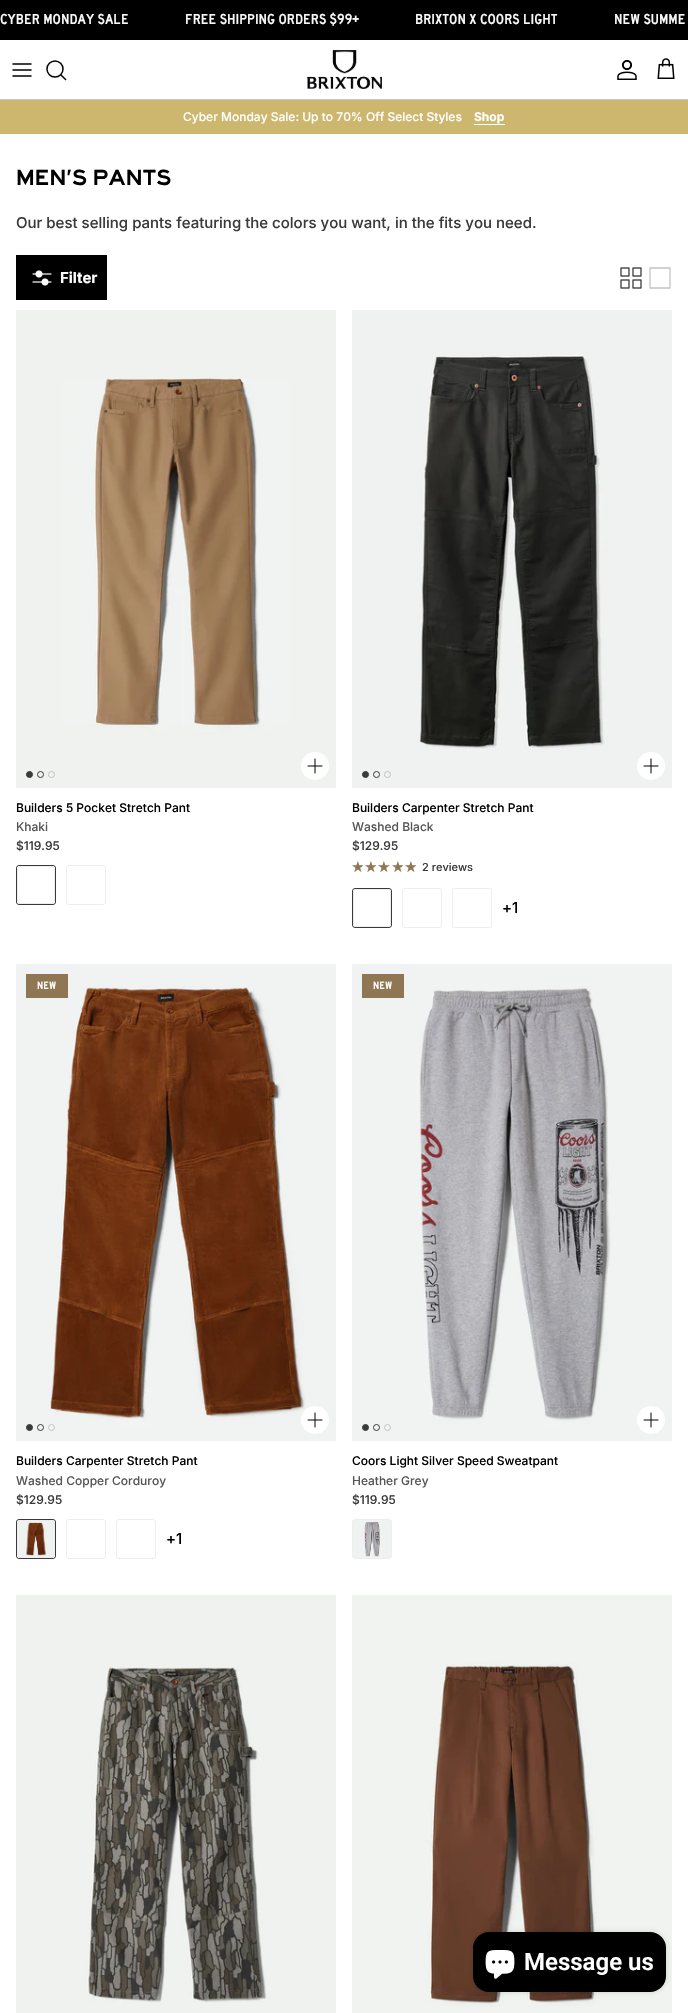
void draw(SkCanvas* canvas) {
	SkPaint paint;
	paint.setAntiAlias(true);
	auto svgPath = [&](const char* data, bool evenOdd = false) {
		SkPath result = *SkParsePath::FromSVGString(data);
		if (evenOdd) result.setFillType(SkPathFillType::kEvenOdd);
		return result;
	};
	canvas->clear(0xffffffff);
	paint.setColor(0xff000000);
	canvas->drawRect(SkRect::MakeXYWH(0, 0, 688, 40), paint);
	SkFont f1(fontMgr->matchFamilyStyle("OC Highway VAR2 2", SkFontStyle::Normal()), 15);
	f1.setSubpixel(true);
	paint.setColor(0xfff8f9fa);
	canvas->drawString("CYBER MONDAY SALE", 0, 24, f1, paint);
	canvas->drawString("FREE SHIPPING ORDERS $99+", 185, 24, f1, paint);
	canvas->drawString("BRIXTON X COORS LIGHT", 415, 24, f1, paint);
	canvas->drawString("NEW SUMME", 614, 24, f1, paint);
	paint.setColor(0xffcccccc);
	canvas->drawRect(SkRect::MakeXYWH(0, 99, 688, 1), paint);
	paint.setStroke(true);
	paint.setStrokeWidth(1.5);
	paint.setStrokeCap(SkPaint::kRound_Cap);
	paint.setStrokeJoin(SkPaint::kRound_Join);
	paint.setColor(0xff000000);
	canvas->drawPath(svgPath("M13 70H31M13 64H31M13 76H31"), paint);
	paint.setStrokeCap(SkPaint::kButt_Cap);
	paint.setStrokeJoin(SkPaint::kMiter_Join);
	canvas->drawCircle(55, 69, 8, paint);
	paint.setStrokeCap(SkPaint::kSquare_Cap);
	canvas->drawPath(svgPath("M61 75L65.5 79.5"), paint);
	canvas->drawImageRect(SkImages::DeferredFromEncodedData(SkData::MakeFromFileName("img1.png")), SkRect::MakeXYWH(306, 50, 76, 39), SkSamplingOptions());
	canvas->drawImageRect(SkImages::DeferredFromEncodedData(SkData::MakeFromFileName("img2.png")), SkRect::MakeXYWH(617, 60, 20, 20), SkSamplingOptions());
	canvas->drawImageRect(SkImages::DeferredFromEncodedData(SkData::MakeFromFileName("img3.png")), SkRect::MakeXYWH(657, 58, 18, 21), SkSamplingOptions());
	paint.setStroke(false);
	paint.setColor(0xffcdb76f);
	canvas->drawRect(SkRect::MakeXYWH(0, 100, 688, 34), paint);
	SkFont f2(fontMgr->matchFamilyStyle("Inter", SkFontStyle(500, SkFontStyle::kNormal_Width, SkFontStyle::kUpright_Slant)), 12);
	f2.setSubpixel(true);
	paint.setColor(0xffffffff);
	canvas->drawString("Cyber Monday Sale: Up to 70% Off Select Styles", 183, 121, f2, paint);
	SkFont f3(fontMgr->matchFamilyStyle("Inter", SkFontStyle::Bold()), 12);
	f3.setSubpixel(true);
	canvas->drawString("Shop", 474, 121, f3, paint);
	canvas->drawRect(SkRect::MakeXYWH(474, 124, 31, 1), paint);
	SkFont f4(fontMgr->matchFamilyStyle("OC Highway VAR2", SkFontStyle::Normal()), 22.75);
	f4.setSubpixel(true);
	paint.setColor(0xff000000);
	canvas->drawString("MEN’S PANTS", 16, 185, f4, paint);
	SkFont f5(fontMgr->matchFamilyStyle("Inter", SkFontStyle(500, SkFontStyle::kNormal_Width, SkFontStyle::kUpright_Slant)), 15);
	f5.setSubpixel(true);
	paint.setColor(0xff3a3a3a);
	canvas->drawString("Our best selling pants featuring the colors you want, in the fits you need.", 16, 228, f5, paint);
	paint.setColor(0xff000000);
	canvas->drawRect(SkRect::MakeXYWH(16, 255, 91, 45), paint);
	canvas->drawImageRect(SkImages::DeferredFromEncodedData(SkData::MakeFromFileName("img4.png")), SkRect::MakeXYWH(32, 270, 20, 16), SkSamplingOptions());
	SkFont f6(fontMgr->matchFamilyStyle("Inter", SkFontStyle::Bold()), 15);
	f6.setSubpixel(true);
	paint.setColor(0xffffffff);
	canvas->drawString("Filter", 60, 283, f6, paint);
	canvas->drawImageRect(SkImages::DeferredFromEncodedData(SkData::MakeFromFileName("img5.png")), SkRect::MakeXYWH(620, 267, 22, 22), SkSamplingOptions());
	paint.setStroke(true);
	paint.setStrokeWidth(1.3);
	paint.setStrokeCap(SkPaint::kRound_Cap);
	paint.setStrokeJoin(SkPaint::kRound_Join);
	paint.setColor(0xffc4c4c4);
	canvas->drawPath(svgPath("M650 268H670V288H650V268"), paint);
	canvas->drawImageRect(SkImages::DeferredFromEncodedData(SkData::MakeFromFileName("img6.png")), SkRect::MakeXYWH(16, 310, 320, 478), SkSamplingOptions());
	paint.setStroke(false);
	paint.setColor(0xff3a3a3a);
	canvas->drawCircle(29.5, 774.5, 3, paint);
	paint.setStroke(true);
	paint.setStrokeWidth(1);
	paint.setStrokeCap(SkPaint::kButt_Cap);
	paint.setStrokeJoin(SkPaint::kMiter_Join);
	canvas->drawCircle(29.5, 774.5, 3, paint);
	canvas->drawCircle(40.5, 774.5, 3, paint);
	paint.setColor(0xffc2c4c2);
	canvas->drawCircle(51.5, 774.5, 3, paint);
	paint.setStroke(false);
	paint.setColor(0xffffffff);
	canvas->drawCircle(315, 766, 14, paint);
	paint.setStroke(true);
	paint.setStrokeCap(SkPaint::kRound_Cap);
	paint.setStrokeJoin(SkPaint::kRound_Join);
	paint.setColor(0xff000000);
	canvas->drawPath(svgPath("M315 759V773M308 766H322"), paint);
	paint.setStroke(false);
	canvas->drawString("Builders 5 Pocket Stretch Pant", 16, 812, f2, paint);
	paint.setColor(0xff555555);
	canvas->drawString("Khaki", 16, 831, f2, paint);
	paint.setColor(0xff3a3a3a);
	canvas->drawString("$119.95", 16, 850, f2, paint);
	paint.setStroke(true);
	paint.setStrokeCap(SkPaint::kButt_Cap);
	paint.setStrokeJoin(SkPaint::kMiter_Join);
	canvas->drawRoundRect(SkRect::MakeXYWH(16.5, 865.5, 39, 39), 2.5, 2.5, paint);
	paint.setColor(0xffeeeeee);
	canvas->drawRoundRect(SkRect::MakeXYWH(17.5, 866.5, 37, 37), 2.5, 2.5, paint);
	canvas->drawRoundRect(SkRect::MakeXYWH(66.5, 865.5, 39, 39), 2.5, 2.5, paint);
	canvas->drawImageRect(SkImages::DeferredFromEncodedData(SkData::MakeFromFileName("img7.png")), SkRect::MakeXYWH(352, 310, 320, 478), SkSamplingOptions());
	paint.setStroke(false);
	paint.setColor(0xff3a3a3a);
	canvas->drawCircle(365.5, 774.5, 3, paint);
	paint.setStroke(true);
	canvas->drawCircle(365.5, 774.5, 3, paint);
	canvas->drawCircle(376.5, 774.5, 3, paint);
	paint.setColor(0xffc2c4c3);
	canvas->drawCircle(387.5, 774.5, 3, paint);
	paint.setStroke(false);
	paint.setColor(0xffffffff);
	canvas->drawCircle(651, 766, 14, paint);
	paint.setStroke(true);
	paint.setStrokeCap(SkPaint::kRound_Cap);
	paint.setStrokeJoin(SkPaint::kRound_Join);
	paint.setColor(0xff000000);
	canvas->drawPath(svgPath("M651 759V773M644 766H658"), paint);
	paint.setStroke(false);
	canvas->drawString("Builders Carpenter Stretch Pant", 352, 812, f2, paint);
	paint.setColor(0xff555555);
	canvas->drawString("Washed Black", 352, 831, f2, paint);
	paint.setColor(0xff3a3a3a);
	canvas->drawString("$129.95", 352, 850, f2, paint);
	canvas->drawImageRect(SkImages::DeferredFromEncodedData(SkData::MakeFromFileName("img8.png")), SkRect::MakeXYWH(352, 861, 11, 11), SkSamplingOptions());
	canvas->drawImageRect(SkImages::DeferredFromEncodedData(SkData::MakeFromFileName("img8.png")), SkRect::MakeXYWH(365, 861, 11, 11), SkSamplingOptions());
	canvas->drawImageRect(SkImages::DeferredFromEncodedData(SkData::MakeFromFileName("img9.png")), SkRect::MakeXYWH(378, 861, 12, 11), SkSamplingOptions());
	canvas->drawImageRect(SkImages::DeferredFromEncodedData(SkData::MakeFromFileName("img8.png")), SkRect::MakeXYWH(392, 861, 11, 11), SkSamplingOptions());
	canvas->drawImageRect(SkImages::DeferredFromEncodedData(SkData::MakeFromFileName("img8.png")), SkRect::MakeXYWH(405, 861, 11, 11), SkSamplingOptions());
	canvas->drawImageRect(SkImages::DeferredFromEncodedData(SkData::MakeFromFileName("img10.png")), SkRect::MakeXYWH(352, 861, 11, 11), SkSamplingOptions());
	canvas->drawImageRect(SkImages::DeferredFromEncodedData(SkData::MakeFromFileName("img10.png")), SkRect::MakeXYWH(365, 861, 11, 11), SkSamplingOptions());
	canvas->drawImageRect(SkImages::DeferredFromEncodedData(SkData::MakeFromFileName("img11.png")), SkRect::MakeXYWH(378, 861, 12, 11), SkSamplingOptions());
	canvas->drawImageRect(SkImages::DeferredFromEncodedData(SkData::MakeFromFileName("img10.png")), SkRect::MakeXYWH(392, 861, 11, 11), SkSamplingOptions());
	canvas->drawImageRect(SkImages::DeferredFromEncodedData(SkData::MakeFromFileName("img10.png")), SkRect::MakeXYWH(405, 861, 11, 11), SkSamplingOptions());
	SkFont f7(fontMgr->matchFamilyStyle("Inter", SkFontStyle(500, SkFontStyle::kNormal_Width, SkFontStyle::kUpright_Slant)), 11);
	f7.setSubpixel(true);
	canvas->drawString("2 reviews", 422, 871, f7, paint);
	paint.setStroke(true);
	paint.setStrokeCap(SkPaint::kButt_Cap);
	paint.setStrokeJoin(SkPaint::kMiter_Join);
	canvas->drawRoundRect(SkRect::MakeXYWH(352.5, 888.5, 39, 39), 2.5, 2.5, paint);
	paint.setColor(0xffeeeeee);
	canvas->drawRoundRect(SkRect::MakeXYWH(353.5, 889.5, 37, 37), 2.5, 2.5, paint);
	canvas->drawRoundRect(SkRect::MakeXYWH(402.5, 888.5, 39, 39), 2.5, 2.5, paint);
	canvas->drawRoundRect(SkRect::MakeXYWH(452.5, 888.5, 39, 39), 2.5, 2.5, paint);
	paint.setStroke(false);
	paint.setColor(0xff000000);
	canvas->drawString("+1", 502, 913, f5, paint);
	canvas->drawImageRect(SkImages::DeferredFromEncodedData(SkData::MakeFromFileName("img12.png")), SkRect::MakeXYWH(16, 964, 320, 477), SkSamplingOptions());
	paint.setColor(0xff8f7754);
	canvas->drawRect(SkRect::MakeXYWH(26, 974, 42, 24), paint);
	SkFont f8(fontMgr->matchFamilyStyle("OC Highway VAR2 2", SkFontStyle::Normal()), 11);
	f8.setSubpixel(true);
	paint.setColor(0xffffffff);
	canvas->drawString("NEW", 37, 989, f8, paint);
	paint.setColor(0xff3a3a3a);
	canvas->drawCircle(29.5, 1427.5, 3, paint);
	paint.setStroke(true);
	canvas->drawCircle(29.5, 1427.5, 3, paint);
	canvas->drawCircle(40.5, 1427.5, 3, paint);
	paint.setColor(0xffc3c5c4);
	canvas->drawCircle(51.5, 1427.5, 3, paint);
	paint.setStroke(false);
	paint.setColor(0xffffffff);
	canvas->drawCircle(315, 1420, 14, paint);
	paint.setStroke(true);
	paint.setStrokeCap(SkPaint::kRound_Cap);
	paint.setStrokeJoin(SkPaint::kRound_Join);
	paint.setColor(0xff000000);
	canvas->drawPath(svgPath("M315 1413V1427M308 1420H322"), paint);
	paint.setStroke(false);
	canvas->drawString("Builders Carpenter Stretch Pant", 16, 1465, f2, paint);
	paint.setColor(0xff555555);
	canvas->drawString("Washed Copper Corduroy", 16, 1485, f2, paint);
	paint.setColor(0xff3a3a3a);
	canvas->drawString("$129.95", 16, 1504, f2, paint);
	paint.setStroke(true);
	paint.setStrokeCap(SkPaint::kButt_Cap);
	paint.setStrokeJoin(SkPaint::kMiter_Join);
	canvas->drawRoundRect(SkRect::MakeXYWH(16.5, 1519.5, 39, 39), 2.5, 2.5, paint);
	canvas->drawImageRect(SkImages::DeferredFromEncodedData(SkData::MakeFromFileName("img13.png")), SkRect::MakeXYWH(18, 1521, 36, 36), SkSamplingOptions());
	paint.setColor(0xffeeeeee);
	canvas->drawRoundRect(SkRect::MakeXYWH(17.5, 1520.5, 37, 37), 2.5, 2.5, paint);
	canvas->drawRoundRect(SkRect::MakeXYWH(66.5, 1519.5, 39, 39), 2.5, 2.5, paint);
	canvas->drawRoundRect(SkRect::MakeXYWH(116.5, 1519.5, 39, 39), 2.5, 2.5, paint);
	paint.setStroke(false);
	paint.setColor(0xff000000);
	canvas->drawString("+1", 166, 1544, f5, paint);
	canvas->drawImageRect(SkImages::DeferredFromEncodedData(SkData::MakeFromFileName("img14.png")), SkRect::MakeXYWH(352, 964, 320, 477), SkSamplingOptions());
	paint.setColor(0xff8f7754);
	canvas->drawRect(SkRect::MakeXYWH(362, 974, 42, 24), paint);
	paint.setColor(0xffffffff);
	canvas->drawString("NEW", 373, 989, f8, paint);
	paint.setColor(0xff3a3a3a);
	canvas->drawCircle(365.5, 1427.5, 3, paint);
	paint.setStroke(true);
	canvas->drawCircle(365.5, 1427.5, 3, paint);
	canvas->drawCircle(376.5, 1427.5, 3, paint);
	paint.setColor(0xffc3c5c4);
	canvas->drawCircle(387.5, 1427.5, 3, paint);
	paint.setStroke(false);
	paint.setColor(0xffffffff);
	canvas->drawCircle(651, 1420, 14, paint);
	paint.setStroke(true);
	paint.setStrokeCap(SkPaint::kRound_Cap);
	paint.setStrokeJoin(SkPaint::kRound_Join);
	paint.setColor(0xff000000);
	canvas->drawPath(svgPath("M651 1413V1427M644 1420H658"), paint);
	paint.setStroke(false);
	canvas->drawString("Coors Light Silver Speed Sweatpant", 352, 1465, f2, paint);
	paint.setColor(0xff555555);
	canvas->drawString("Heather Grey", 352, 1485, f2, paint);
	paint.setColor(0xff3a3a3a);
	canvas->drawString("$119.95", 352, 1504, f2, paint);
	canvas->drawImageRect(SkImages::DeferredFromEncodedData(SkData::MakeFromFileName("img15.png")), SkRect::MakeXYWH(353, 1520, 38, 38), SkSamplingOptions());
	paint.setStroke(true);
	paint.setStrokeCap(SkPaint::kButt_Cap);
	paint.setStrokeJoin(SkPaint::kMiter_Join);
	paint.setColor(0xffeeeeee);
	canvas->drawRoundRect(SkRect::MakeXYWH(352.5, 1519.5, 39, 39), 2.5, 2.5, paint);
	canvas->drawImageRect(SkImages::DeferredFromEncodedData(SkData::MakeFromFileName("img16.png")), SkRect::MakeXYWH(16, 1595, 320, 418), SkSamplingOptions());
	canvas->drawImageRect(SkImages::DeferredFromEncodedData(SkData::MakeFromFileName("img17.png")), SkRect::MakeXYWH(352, 1595, 320, 418), SkSamplingOptions());
	paint.setStroke(false);
	paint.setColor(0x26000000);
	paint.setMaskFilter(SkMaskFilter::MakeBlur(kNormal_SkBlurStyle, 2.5));
	canvas->drawRoundRect(SkRect::MakeXYWH(473, 1932, 193, 60), 16, 16, paint);
	paint.setMaskFilter(nullptr);
	paint.setColor(0xff000000);
	canvas->drawRoundRect(SkRect::MakeXYWH(473, 1932, 193, 60), 16, 16, paint);
	canvas->drawImageRect(SkImages::DeferredFromEncodedData(SkData::MakeFromFileName("img18.png")), SkRect::MakeXYWH(485, 1950, 30, 29), SkSamplingOptions());
	SkFont f9(fontMgr->matchFamilyStyle("Roboto", SkFontStyle(600, SkFontStyle::kNormal_Width, SkFontStyle::kUpright_Slant)), 24);
	f9.setSubpixel(true);
	paint.setColor(0xffffffff);
	canvas->drawString("Message us", 524, 1970, f9, paint);
}
